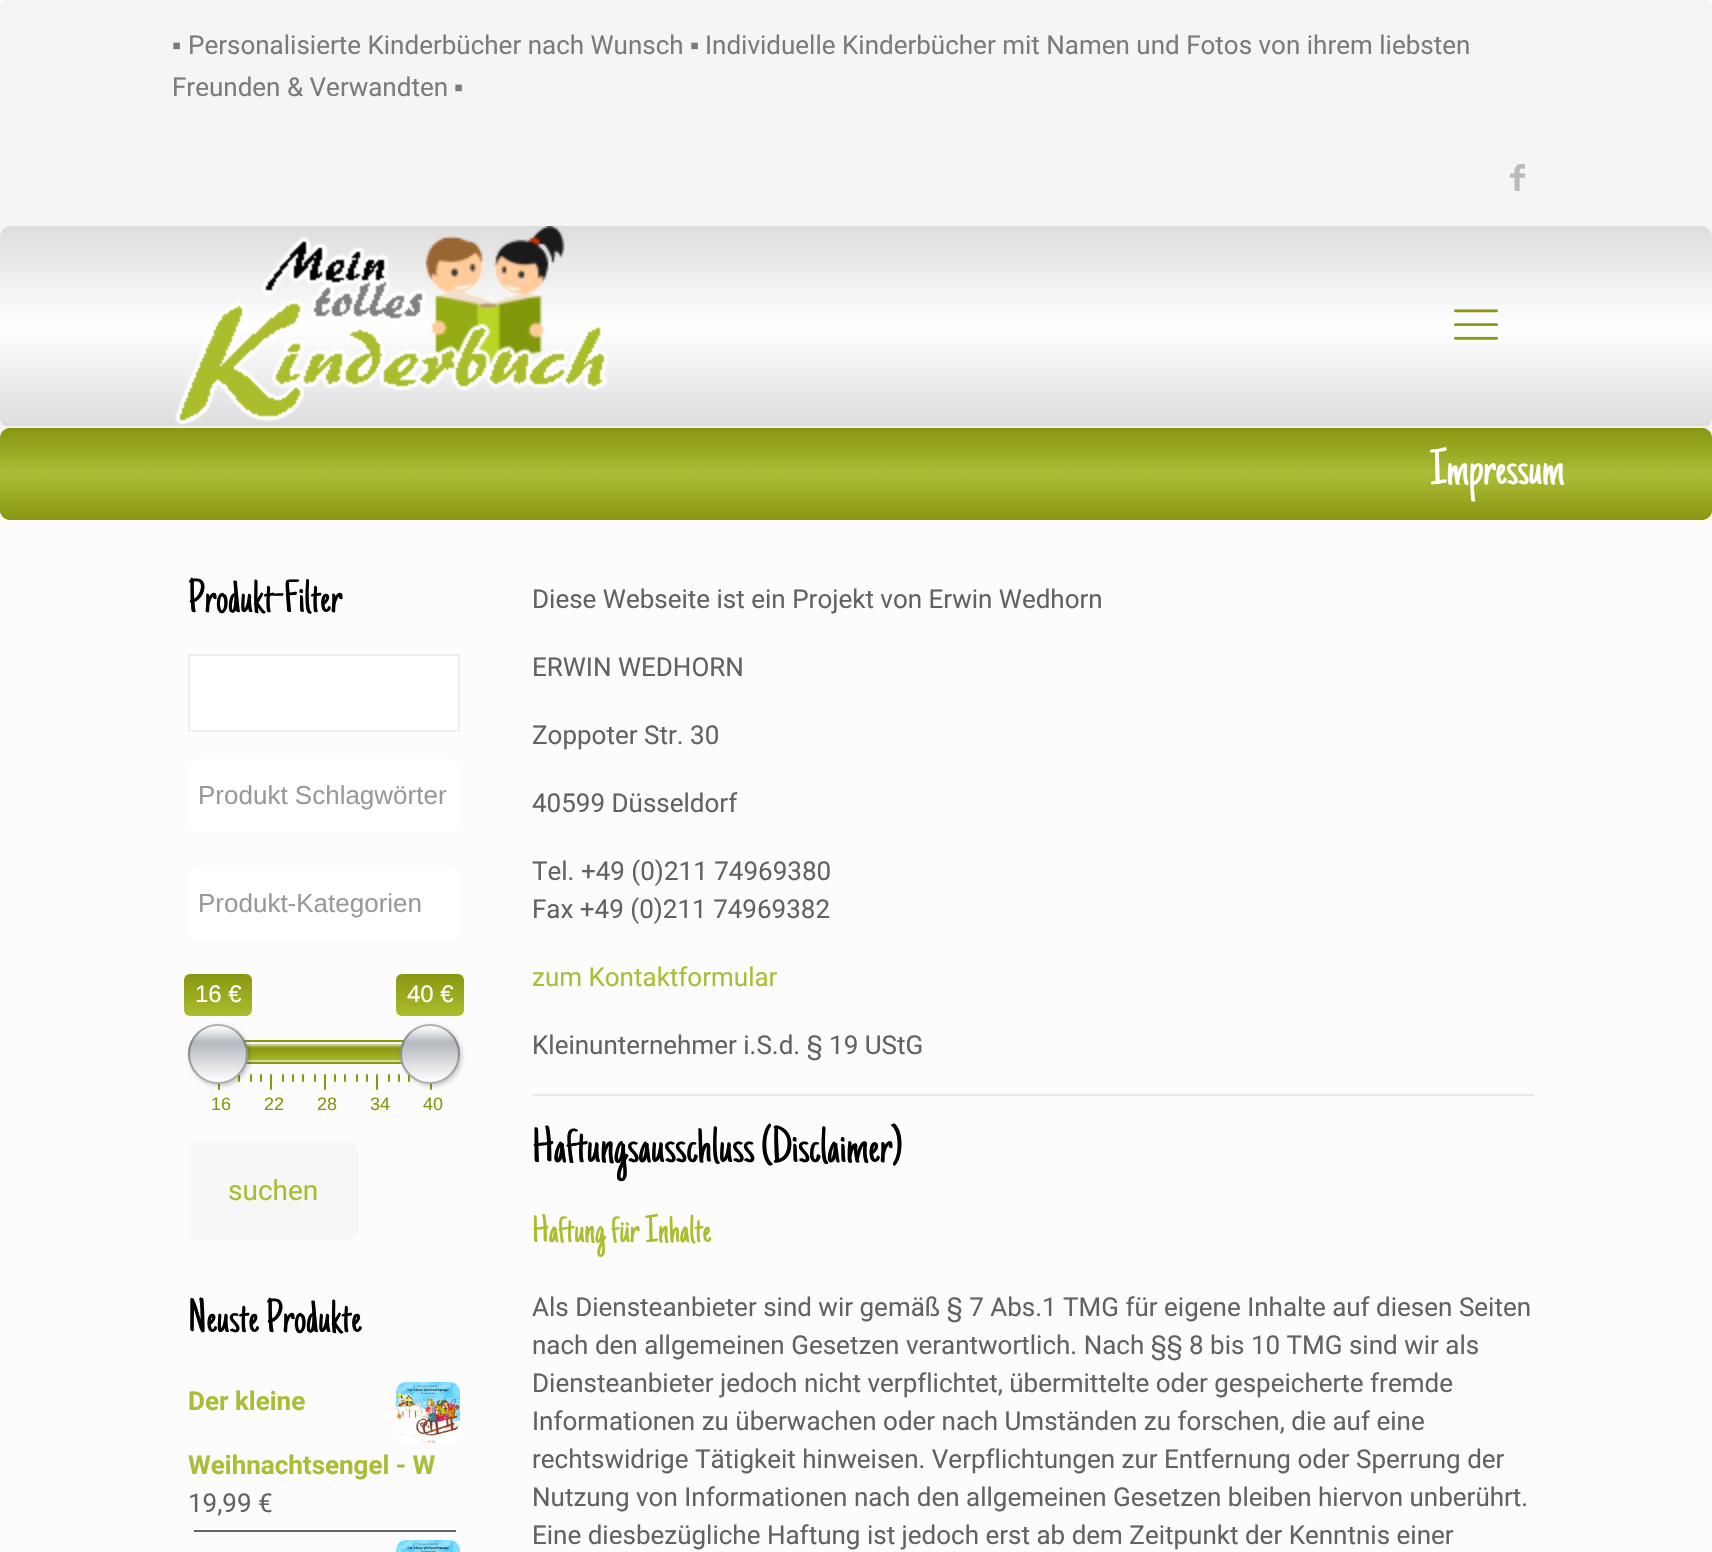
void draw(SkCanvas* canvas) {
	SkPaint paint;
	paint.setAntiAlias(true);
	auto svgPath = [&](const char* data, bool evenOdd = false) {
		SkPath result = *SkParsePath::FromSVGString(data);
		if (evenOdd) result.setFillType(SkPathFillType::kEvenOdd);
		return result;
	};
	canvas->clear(0xfffcfcfc);
	paint.setColor(0xfff5f5f5);
	canvas->drawRoundRect(SkRect::MakeXYWH(0, 0, 1712, 520), 10, 10, paint);
	canvas->drawImageRect(SkImages::DeferredFromEncodedData(SkData::MakeFromFileName("img1.png")), SkRect::MakeXYWH(0, 0, 1712, 10), SkSamplingOptions());
	canvas->drawRoundRect(SkRect::MakeXYWH(0, 0, 1712, 226), 10, 10, paint);
	SkFont f1(fontMgr->matchFamilyStyle("Liberation Serif", SkFontStyle::Normal()), 26);
	f1.setSubpixel(true);
	paint.setColor(0xff7b7b7b);
	canvas->drawString("▪", 172, 54, f1, paint);
	SkFont f2(fontMgr->matchFamilyStyle("Roboto", SkFontStyle::Normal()), 26);
	f2.setSubpixel(true);
	canvas->drawString("Personalisierte Kinderbücher nach Wunsch", 188, 54, f2, paint);
	canvas->drawString("▪", 690, 54, f1, paint);
	canvas->drawString("Individuelle Kinderbücher mit Namen und Fotos von ihrem liebsten", 705, 54, f2, paint);
	canvas->drawString("Freunden & Verwandten", 172, 96, f2, paint);
	canvas->drawString("▪", 454, 96, f1, paint);
	canvas->drawImageRect(SkImages::DeferredFromEncodedData(SkData::MakeFromFileName("img2.png")), SkRect::MakeXYWH(1510, 164, 15, 27), SkSamplingOptions());
	paint.setColor(0xffffffff);
	canvas->drawPath(svgPath("M10 226H1702C1708 226 1712 230 1712 236V418C1712 422 1708 426 1702 426H10C4 426 0 422 0 418V236C0 230 4 226 10 226Z"), paint);
	canvas->drawImageRect(SkImages::DeferredFromEncodedData(SkData::MakeFromFileName("img3.png")), SkRect::MakeXYWH(0, 226, 1712, 200), SkSamplingOptions());
	paint.setColor(0xfff2f2f2);
	canvas->drawRect(SkRect::MakeXYWH(6, 426, 1702, 2), paint);
	canvas->drawImageRect(SkImages::DeferredFromEncodedData(SkData::MakeFromFileName("img4.png")), SkRect::MakeXYWH(174, 226, 434, 199), SkSamplingOptions());
	canvas->drawImageRect(SkImages::DeferredFromEncodedData(SkData::MakeFromFileName("img5.png")), SkRect::MakeXYWH(1454, 309, 44, 31), SkSamplingOptions());
	paint.setColor(0xff8c9a22);
	canvas->drawRoundRect(SkRect::MakeXYWH(0, 428, 1712, 92), 10, 10, paint);
	canvas->drawImageRect(SkImages::DeferredFromEncodedData(SkData::MakeFromFileName("img6.png")), SkRect::MakeXYWH(0, 428, 1712, 92), SkSamplingOptions());
	SkFont f3(fontMgr->matchFamilyStyle("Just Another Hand", SkFontStyle::Normal()), 52);
	f3.setSubpixel(true);
	paint.setColor(0xffffffff);
	canvas->drawString("Impressum", 1430, 484, f3, paint);
	SkFont f4(fontMgr->matchFamilyStyle("Just Another Hand", SkFontStyle::Normal()), 48);
	f4.setSubpixel(true);
	paint.setColor(0xff000000);
	canvas->drawString("Produkt-Filter", 188, 612, f4, paint);
	paint.setColor(0xffffffff);
	canvas->drawRect(SkRect::MakeXYWH(189, 655, 270, 76), paint);
	paint.setStroke(true);
	paint.setStrokeWidth(2);
	paint.setColor(0xffeeeeee);
	canvas->drawRect(SkRect::MakeXYWH(189, 655, 270, 76), paint);
	paint.setStroke(false);
	paint.setColor(0xffffffff);
	canvas->drawRoundRect(SkRect::MakeXYWH(188, 758, 272, 74), 10, 10, paint);
	SkFont f5(fontMgr->matchFamilyStyle("Liberation Sans", SkFontStyle::Normal()), 26);
	f5.setSubpixel(true);
	paint.setColor(0xff999999);
	canvas->drawString("Produkt Schlagwörter", 198, 804, f5, paint);
	paint.setColor(0xffffffff);
	canvas->drawRoundRect(SkRect::MakeXYWH(188, 866, 272, 74), 10, 10, paint);
	paint.setColor(0xff999999);
	canvas->drawString("Produkt-Kategorien", 198, 912, f5, paint);
	{
		const SkColor colors[] = {0xff899611, 0xffabbd2d};
		const float stops[] = {0, 1};
		const SkPoint ends[] = {{218, 974}, {218, 1016}};
		paint.setShader(SkGradientShader::MakeLinear(ends, colors, stops, 2, SkTileMode::kClamp));
		paint.setAlpha(255);
	}
	canvas->drawRoundRect(SkRect::MakeXYWH(184, 974, 68, 42), 6, 6, paint);
	SkFont f6(fontMgr->matchFamilyStyle("Liberation Sans", SkFontStyle::Normal()), 24);
	f6.setSubpixel(true);
	paint.setShader(nullptr);
	paint.setColor(0xffffffff);
	canvas->drawString("16 €", 195, 1002, f6, paint);
	{
		const SkColor colors[] = {0xff899611, 0xffabbd2d};
		const float stops[] = {0, 1};
		const SkPoint ends[] = {{430, 974}, {430, 1016}};
		paint.setShader(SkGradientShader::MakeLinear(ends, colors, stops, 2, SkTileMode::kClamp));
		paint.setAlpha(255);
	}
	canvas->drawRoundRect(SkRect::MakeXYWH(396, 974, 68, 42), 6, 6, paint);
	paint.setShader(nullptr);
	paint.setColor(0xffffffff);
	canvas->drawString("40 €", 407, 1002, f6, paint);
	paint.setStroke(true);
	paint.setColor(0xffcccccc);
	canvas->drawRoundRect(SkRect::MakeXYWH(189, 1041, 270, 22), 11, 11, paint);
	paint.setStroke(false);
	{
		const SkColor colors[] = {0xffffffff, 0xff899611, 0xffabbd2d};
		const float stops[] = {0, 0.3, 1};
		const SkPoint ends[] = {{324, 1042}, {324, 1062}};
		paint.setShader(SkGradientShader::MakeLinear(ends, colors, stops, 3, SkTileMode::kClamp));
		paint.setAlpha(255);
	}
	canvas->drawRect(SkRect::MakeXYWH(245, 1042, 158, 20), paint);
	paint.setStroke(true);
	paint.setShader(nullptr);
	paint.setColor(0x80ffffff);
	canvas->drawRect(SkRect::MakeXYWH(221, 1043, 206, 18), paint);
	paint.setColor(0xff899611);
	canvas->drawRect(SkRect::MakeXYWH(219, 1041, 210, 22), paint);
	paint.setStroke(false);
	canvas->drawRoundRect(SkRect::MakeXYWH(218, 1074, 2, 16), 1, 1, paint);
	canvas->drawRoundRect(SkRect::MakeXYWH(238, 1074, 2, 8), 1, 1, paint);
	canvas->drawRoundRect(SkRect::MakeXYWH(250, 1074, 2, 8), 1, 1, paint);
	paint.setColor(0x33000000);
	paint.setMaskFilter(SkMaskFilter::MakeBlur(kNormal_SkBlurStyle, 2));
	canvas->drawRoundRect(SkRect::MakeXYWH(190, 1026, 60, 60), 30, 30, paint);
	paint.setMaskFilter(nullptr);
	canvas->save();
	canvas->clipPath(svgPath("M218 1024C234.5 1024 248 1037.5 248 1054C248 1070.5 234.5 1084 218 1084C201.5 1084 188 1070.5 188 1054C188 1037.5 201.5 1024 218 1024Z"), true);
	{
		const SkColor colors[] = {0xffffffff, 0xffb4b9be, 0xffffffff};
		const float stops[] = {0, 0.3, 1};
		const SkPoint ends[] = {{218, 970}, {218, 1026}};
		paint.setShader(SkGradientShader::MakeLinear(ends, colors, stops, 3, SkTileMode::kClamp));
		paint.setAlpha(255);
	}
	canvas->drawRect(SkRect::MakeXYWH(207, 1024, 22, 2), paint);
	{
		const SkColor colors[] = {0xffffffff, 0xffb4b9be, 0xffffffff};
		const float stops[] = {0, 0.3, 1};
		const SkPoint ends[] = {{218, 1026}, {218, 1082}};
		paint.setShader(SkGradientShader::MakeLinear(ends, colors, stops, 3, SkTileMode::kClamp));
		paint.setAlpha(255);
	}
	canvas->drawRect(SkRect::MakeXYWH(188, 1026, 60, 56), paint);
	{
		const SkColor colors[] = {0xffffffff, 0xffb4b9be, 0xffffffff};
		const float stops[] = {0, 0.3, 1};
		const SkPoint ends[] = {{218, 1082}, {218, 1138}};
		paint.setShader(SkGradientShader::MakeLinear(ends, colors, stops, 3, SkTileMode::kClamp));
		paint.setAlpha(255);
	}
	canvas->drawRect(SkRect::MakeXYWH(207, 1082, 22, 2), paint);
	canvas->restore();
	paint.setStroke(true);
	paint.setShader(nullptr);
	paint.setColor(0x4d000000);
	canvas->drawCircle(218, 1054, 29, paint);
	paint.setStroke(false);
	paint.setColor(0xff899611);
	canvas->drawRoundRect(SkRect::MakeXYWH(398, 1074, 2, 8), 1, 1, paint);
	canvas->drawRoundRect(SkRect::MakeXYWH(408, 1074, 2, 8), 1, 1, paint);
	canvas->drawRoundRect(SkRect::MakeXYWH(430, 1074, 2, 16), 1, 1, paint);
	paint.setColor(0x33000000);
	paint.setMaskFilter(SkMaskFilter::MakeBlur(kNormal_SkBlurStyle, 2));
	canvas->drawRoundRect(SkRect::MakeXYWH(402, 1026, 60, 60), 30, 30, paint);
	paint.setMaskFilter(nullptr);
	canvas->save();
	canvas->clipPath(svgPath("M430 1024C446.5 1024 460 1037.5 460 1054C460 1070.5 446.5 1084 430 1084C413.5 1084 400 1070.5 400 1054C400 1037.5 413.5 1024 430 1024Z"), true);
	{
		const SkColor colors[] = {0xffffffff, 0xffb4b9be, 0xffffffff};
		const float stops[] = {0, 0.3, 1};
		const SkPoint ends[] = {{430, 970}, {430, 1026}};
		paint.setShader(SkGradientShader::MakeLinear(ends, colors, stops, 3, SkTileMode::kClamp));
		paint.setAlpha(255);
	}
	canvas->drawRect(SkRect::MakeXYWH(419, 1024, 22, 2), paint);
	{
		const SkColor colors[] = {0xffffffff, 0xffb4b9be, 0xffffffff};
		const float stops[] = {0, 0.3, 1};
		const SkPoint ends[] = {{430, 1026}, {430, 1082}};
		paint.setShader(SkGradientShader::MakeLinear(ends, colors, stops, 3, SkTileMode::kClamp));
		paint.setAlpha(255);
	}
	canvas->drawRect(SkRect::MakeXYWH(400, 1026, 60, 56), paint);
	{
		const SkColor colors[] = {0xffffffff, 0xffb4b9be, 0xffffffff};
		const float stops[] = {0, 0.3, 1};
		const SkPoint ends[] = {{430, 1082}, {430, 1138}};
		paint.setShader(SkGradientShader::MakeLinear(ends, colors, stops, 3, SkTileMode::kClamp));
		paint.setAlpha(255);
	}
	canvas->drawRect(SkRect::MakeXYWH(419, 1082, 22, 2), paint);
	canvas->restore();
	paint.setStroke(true);
	paint.setShader(nullptr);
	paint.setColor(0x4d000000);
	canvas->drawCircle(430, 1054, 29, paint);
	paint.setStroke(false);
	paint.setColor(0xff899611);
	canvas->drawRoundRect(SkRect::MakeXYWH(260, 1074, 2, 8), 1, 1, paint);
	canvas->drawRoundRect(SkRect::MakeXYWH(270, 1074, 2, 16), 1, 1, paint);
	canvas->drawRoundRect(SkRect::MakeXYWH(282, 1074, 2, 8), 1, 1, paint);
	canvas->drawRoundRect(SkRect::MakeXYWH(292, 1074, 2, 8), 1, 1, paint);
	canvas->drawRoundRect(SkRect::MakeXYWH(302, 1074, 2, 8), 1, 1, paint);
	canvas->drawRoundRect(SkRect::MakeXYWH(314, 1074, 2, 8), 1, 1, paint);
	canvas->drawRoundRect(SkRect::MakeXYWH(324, 1074, 2, 16), 1, 1, paint);
	canvas->drawRoundRect(SkRect::MakeXYWH(334, 1074, 2, 8), 1, 1, paint);
	canvas->drawRoundRect(SkRect::MakeXYWH(344, 1074, 2, 8), 1, 1, paint);
	canvas->drawRoundRect(SkRect::MakeXYWH(356, 1074, 2, 8), 1, 1, paint);
	canvas->drawRoundRect(SkRect::MakeXYWH(366, 1074, 2, 8), 1, 1, paint);
	canvas->drawRoundRect(SkRect::MakeXYWH(376, 1074, 2, 16), 1, 1, paint);
	canvas->drawRoundRect(SkRect::MakeXYWH(388, 1074, 2, 8), 1, 1, paint);
	SkFont f7(fontMgr->matchFamilyStyle("Liberation Sans", SkFontStyle::Normal()), 18);
	f7.setSubpixel(true);
	canvas->drawString("16", 211, 1110, f7, paint);
	canvas->drawString("22", 264, 1110, f7, paint);
	canvas->drawString("28", 317, 1110, f7, paint);
	canvas->drawString("34", 370, 1110, f7, paint);
	canvas->drawString("40", 423, 1110, f7, paint);
	paint.setColor(0xfff7f7f7);
	canvas->drawRoundRect(SkRect::MakeXYWH(188, 1142, 170, 98), 10, 10, paint);
	SkFont f8(fontMgr->matchFamilyStyle("Roboto", SkFontStyle::Normal()), 28);
	f8.setSubpixel(true);
	paint.setColor(0xffabbd2d);
	canvas->drawString("suchen", 228, 1200, f8, paint);
	paint.setColor(0xff000000);
	canvas->drawString("Neuste Produkte", 188, 1332, f4, paint);
	paint.setColor(0xff626262);
	canvas->drawRect(SkRect::MakeXYWH(194, 1530, 262, 2), paint);
	SkFont f9(fontMgr->matchFamilyStyle("Roboto", SkFontStyle::Bold()), 26);
	f9.setSubpixel(true);
	paint.setColor(0xffabbd38);
	canvas->drawString("Der kleine", 188, 1410, f9, paint);
	canvas->drawImageRect(SkImages::DeferredFromEncodedData(SkData::MakeFromFileName("img7.png")), SkRect::MakeXYWH(396, 1382, 64, 61), SkSamplingOptions());
	canvas->drawString("Weihnachtsengel - W", 188, 1474, f9, paint);
	paint.setColor(0xff626262);
	canvas->drawString("19,99 €", 188, 1512, f2, paint);
	canvas->drawImageRect(SkImages::DeferredFromEncodedData(SkData::MakeFromFileName("img8.png")), SkRect::MakeXYWH(396, 1540, 64, 12), SkSamplingOptions());
	canvas->drawString("Diese Webseite ist ein Projekt von Erwin Wedhorn", 532, 608, f2, paint);
	canvas->drawString("ERWIN WEDHORN", 532, 676, f2, paint);
	canvas->drawString("Zoppoter Str. 30", 532, 744, f2, paint);
	canvas->drawString("40599 Düsseldorf", 532, 812, f2, paint);
	canvas->drawString("Tel. +49 (0)211 74969380", 532, 880, f2, paint);
	canvas->drawString("Fax +49 (0)211 74969382", 532, 918, f2, paint);
	paint.setColor(0xffabbd38);
	canvas->drawString("zum Kontaktformular", 532, 986, f2, paint);
	paint.setColor(0xff626262);
	canvas->drawString("Kleinunternehmer i.S.d. § 19 UStG", 532, 1054, f2, paint);
	paint.setColor(0xffe8e8e8);
	canvas->drawRect(SkRect::MakeXYWH(532, 1094, 1002, 2), paint);
	paint.setColor(0xff000000);
	canvas->drawString("Haftungsausschluss (Disclaimer)", 532, 1162, f3, paint);
	SkFont f10(fontMgr->matchFamilyStyle("Just Another Hand", SkFontStyle::Normal()), 40);
	f10.setSubpixel(true);
	paint.setColor(0xffabbd2d);
	canvas->drawString("Haftung für Inhalte", 532, 1242, f10, paint);
	paint.setColor(0xff626262);
	canvas->drawString("Als Diensteanbieter sind wir gemäß § 7 Abs.1 TMG für eigene Inhalte auf diesen Seiten", 532, 1316, f2, paint);
	canvas->drawString("nach den allgemeinen Gesetzen verantwortlich. Nach §§ 8 bis 10 TMG sind wir als", 532, 1354, f2, paint);
	canvas->drawString("Diensteanbieter jedoch nicht verpflichtet, übermittelte oder gespeicherte fremde", 532, 1392, f2, paint);
	canvas->drawString("Informationen zu überwachen oder nach Umständen zu forschen, die auf eine", 532, 1430, f2, paint);
	canvas->drawString("rechtswidrige Tätigkeit hinweisen. Verpflichtungen zur Entfernung oder Sperrung der", 532, 1468, f2, paint);
	canvas->drawString("Nutzung von Informationen nach den allgemeinen Gesetzen bleiben hiervon unberührt.", 532, 1506, f2, paint);
	canvas->drawString("Eine diesbezügliche Haftung ist jedoch erst ab dem Zeitpunkt der Kenntnis einer", 532, 1544, f2, paint);
}
